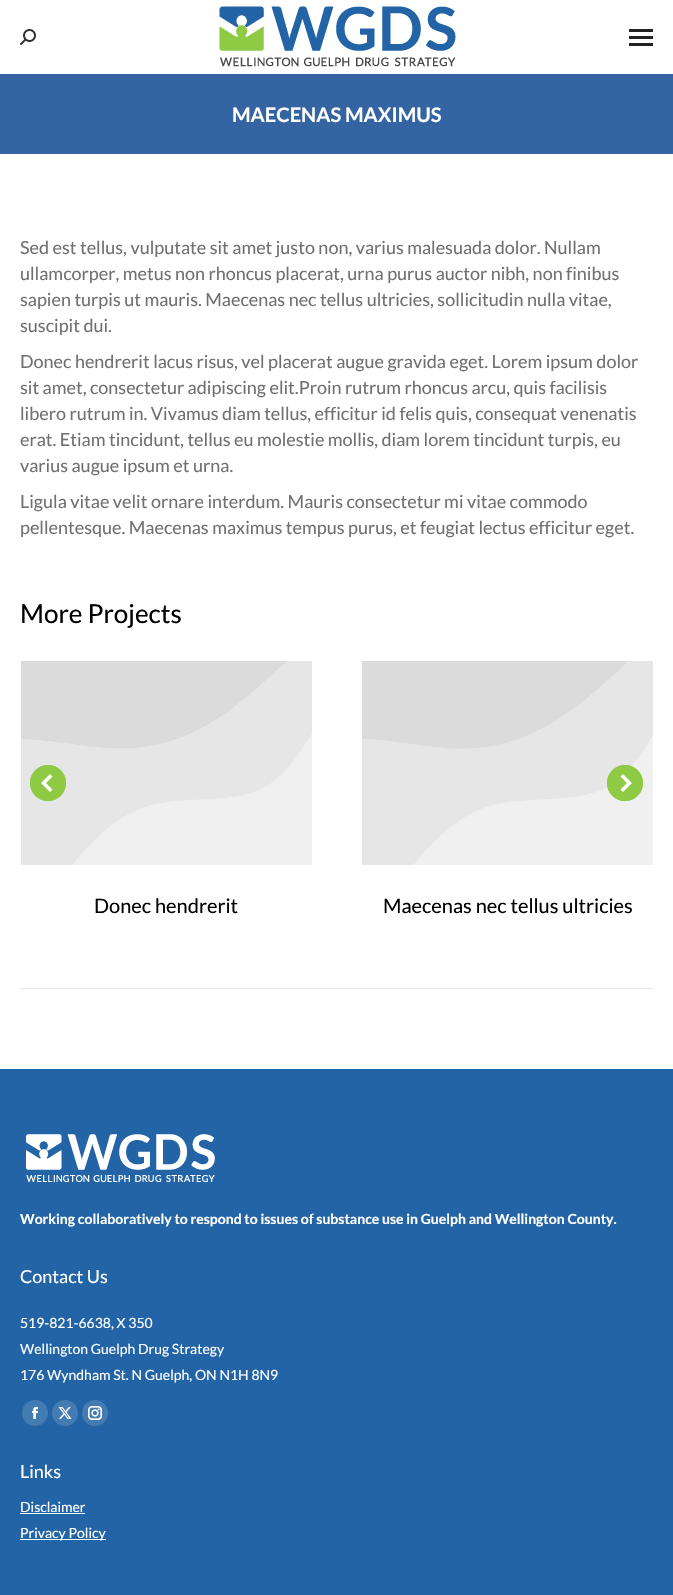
void draw(SkCanvas* canvas) {
	SkPaint paint;
	paint.setAntiAlias(true);
	auto svgPath = [&](const char* data, bool evenOdd = false) {
		SkPath result = *SkParsePath::FromSVGString(data);
		if (evenOdd) result.setFillType(SkPathFillType::kEvenOdd);
		return result;
	};
	canvas->clear(0xffffffff);
	canvas->drawImageRect(SkImages::DeferredFromEncodedData(SkData::MakeFromFileName("img1.png")), SkRect::MakeXYWH(20, 29, 16, 16), SkSamplingOptions());
	canvas->drawImageRect(SkImages::DeferredFromEncodedData(SkData::MakeFromFileName("img2.png")), SkRect::MakeXYWH(219, 6, 237, 61), SkSamplingOptions());
	paint.setColor(0xff222222);
	canvas->drawRect(SkRect::MakeXYWH(629, 29, 24, 3), paint);
	canvas->drawRect(SkRect::MakeXYWH(629, 36, 24, 3), paint);
	canvas->drawRect(SkRect::MakeXYWH(629, 43, 24, 3), paint);
	paint.setColor(0xff3464a1);
	canvas->drawRect(SkRect::MakeXYWH(0, 74, 673, 80), paint);
	SkFont f1(fontMgr->matchFamilyStyle("Lato", SkFontStyle::Bold()), 20);
	f1.setSubpixel(true);
	paint.setColor(0xffffffff);
	canvas->drawString("MAECENAS MAXIMUS", 232, 122, f1, paint);
	SkFont f2(fontMgr->matchFamilyStyle("Lato", SkFontStyle::Normal()), 18);
	f2.setSubpixel(true);
	paint.setColor(0xff707070);
	canvas->drawString("Sed est tellus, vulputate sit amet justo non, varius malesuada dolor. Nullam", 20, 254, f2, paint);
	canvas->drawString("ullamcorper, metus non rhoncus placerat, urna purus auctor nibh, non finibus", 20, 280, f2, paint);
	canvas->drawString("sapien turpis ut mauris. Maecenas nec tellus ultricies, sollicitudin nulla vitae,", 20, 306, f2, paint);
	canvas->drawString("suscipit dui.", 20, 332, f2, paint);
	canvas->drawString("Donec hendrerit lacus risus, vel placerat augue gravida eget. Lorem ipsum dolor", 20, 368, f2, paint);
	canvas->drawString("sit amet, consectetur adipiscing elit.Proin rutrum rhoncus arcu, quis facilisis", 20, 394, f2, paint);
	canvas->drawString("libero rutrum in. Vivamus diam tellus, efficitur id felis quis, consequat venenatis", 20, 420, f2, paint);
	canvas->drawString("erat. Etiam tincidunt, tellus eu molestie mollis, diam lorem tincidunt turpis, eu", 20, 446, f2, paint);
	canvas->drawString("varius augue ipsum et urna.", 20, 472, f2, paint);
	canvas->drawString("Ligula vitae velit ornare interdum. Mauris consectetur mi vitae commodo", 20, 508, f2, paint);
	canvas->drawString("pellentesque. Maecenas maximus tempus purus, et feugiat lectus efficitur eget.", 20, 534, f2, paint);
	paint.setColor(0xffe6e6e6);
	canvas->drawRect(SkRect::MakeXYWH(20, 988, 633, 1), paint);
	SkFont f3(fontMgr->matchFamilyStyle("Lato", SkFontStyle::Normal()), 26);
	f3.setSubpixel(true);
	paint.setColor(0xff000000);
	canvas->drawString("More Projects", 20, 623, f3, paint);
	canvas->drawImageRect(SkImages::DeferredFromEncodedData(SkData::MakeFromFileName("img3.png")), SkRect::MakeXYWH(21, 661, 291, 204), SkSamplingOptions());
	paint.setColor(0xff8eca44);
	canvas->drawCircle(48, 783, 18, paint);
	paint.setColor(0xe68eca44);
	canvas->drawCircle(48, 783, 18, paint);
	paint.setColor(0xffffffff);
	canvas->drawPath(svgPath("M52.5 789.5L46 783L52.5 776.5L50 774L41 783L50 792Z"), paint);
	canvas->drawImageRect(SkImages::DeferredFromEncodedData(SkData::MakeFromFileName("img4.png")), SkRect::MakeXYWH(362, 661, 291, 204), SkSamplingOptions());
	paint.setColor(0xff8eca44);
	canvas->drawCircle(625, 783, 18, paint);
	paint.setColor(0xe68eca44);
	canvas->drawCircle(625, 783, 18, paint);
	paint.setColor(0xffffffff);
	canvas->drawPath(svgPath("M623 792L632 783L623 774L620.5 776.5L627 783L620.5 789.5Z"), paint);
	SkFont f4(fontMgr->matchFamilyStyle("Lato", SkFontStyle::Normal()), 20);
	f4.setSubpixel(true);
	paint.setColor(0xff000000);
	canvas->drawString("Donec hendrerit", 94, 913, f4, paint);
	canvas->drawString("Maecenas nec tellus ultricies", 383, 913, f4, paint);
	paint.setColor(0xff2364a6);
	canvas->drawRect(SkRect::MakeXYWH(0, 1069, 673, 526), paint);
	canvas->drawImageRect(SkImages::DeferredFromEncodedData(SkData::MakeFromFileName("img5.png")), SkRect::MakeXYWH(26, 1134, 189, 48), SkSamplingOptions());
	SkFont f5(fontMgr->matchFamilyStyle("Lato", SkFontStyle::Bold()), 14);
	f5.setSubpixel(true);
	paint.setColor(0xffffffff);
	canvas->drawString("Working collaboratively to respond to issues of substance use in Guelph and Wellington County.", 20, 1224, f5, paint);
	canvas->drawString("Contact Us", 20, 1283, f2, paint);
	SkFont f6(fontMgr->matchFamilyStyle("Lato", SkFontStyle::Normal()), 14);
	f6.setSubpixel(true);
	canvas->drawString("519-821-6638, X 350", 20, 1328, f6, paint);
	canvas->drawString("Wellington Guelph Drug Strategy", 20, 1354, f6, paint);
	canvas->drawString("176 Wyndham St. N Guelph, ON N1H 8N9", 20, 1380, f6, paint);
	paint.setColor(0xff447bb3);
	canvas->drawCircle(35, 1413, 13, paint);
	canvas->drawImageRect(SkImages::DeferredFromEncodedData(SkData::MakeFromFileName("img6.png")), SkRect::MakeXYWH(32, 1407, 6, 12), SkSamplingOptions());
	canvas->drawCircle(65, 1413, 13, paint);
	canvas->drawImageRect(SkImages::DeferredFromEncodedData(SkData::MakeFromFileName("img7.png")), SkRect::MakeXYWH(58, 1407, 14, 12), SkSamplingOptions());
	canvas->drawCircle(95, 1413, 13, paint);
	canvas->drawImageRect(SkImages::DeferredFromEncodedData(SkData::MakeFromFileName("img8.png")), SkRect::MakeXYWH(88, 1406, 14, 14), SkSamplingOptions());
	paint.setColor(0xffffffff);
	canvas->drawString("Links", 20, 1478, f2, paint);
	canvas->drawString("Disclaimer", 20, 1512, f6, paint);
	canvas->drawRect(SkRect::MakeXYWH(20, 1513, 65, 1), paint);
	canvas->drawRect(SkRect::MakeXYWH(20, 1539, 86, 1), paint);
	canvas->drawString("Privacy Policy", 20, 1538, f6, paint);
}
